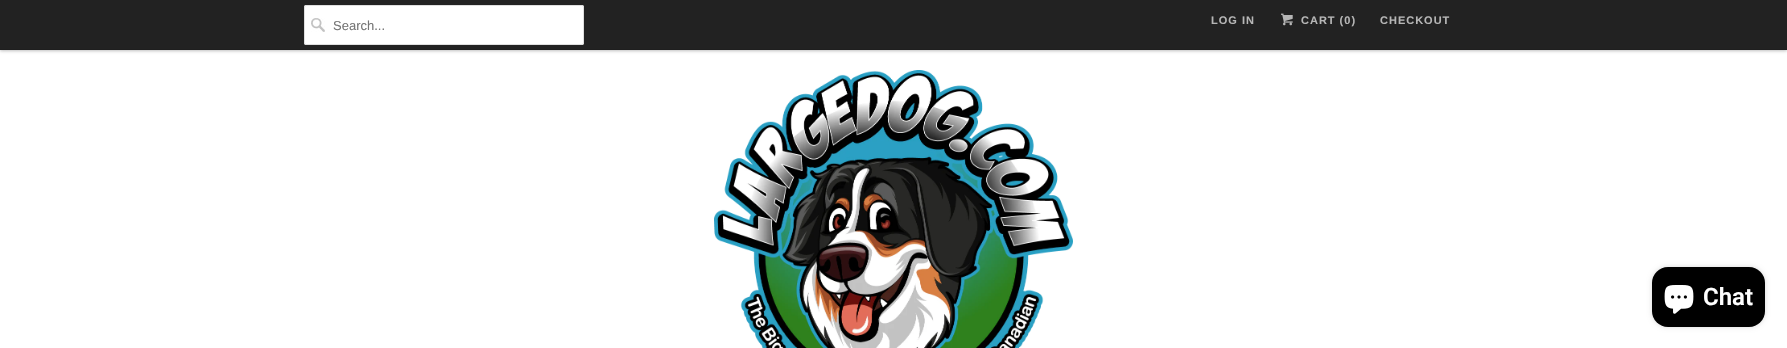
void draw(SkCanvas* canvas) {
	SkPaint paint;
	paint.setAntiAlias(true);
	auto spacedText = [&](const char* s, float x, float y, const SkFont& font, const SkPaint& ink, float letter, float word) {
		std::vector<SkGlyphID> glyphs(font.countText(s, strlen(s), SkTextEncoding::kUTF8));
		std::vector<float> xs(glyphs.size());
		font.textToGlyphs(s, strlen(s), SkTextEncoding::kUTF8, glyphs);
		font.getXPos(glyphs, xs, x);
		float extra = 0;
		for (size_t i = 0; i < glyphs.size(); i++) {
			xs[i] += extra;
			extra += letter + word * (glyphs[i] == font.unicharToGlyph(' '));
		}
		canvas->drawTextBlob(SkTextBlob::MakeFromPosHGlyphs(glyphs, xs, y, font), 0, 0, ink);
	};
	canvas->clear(0xffffffff);
	paint.setColor(0x40000000);
	paint.setMaskFilter(SkMaskFilter::MakeBlur(kNormal_SkBlurStyle, 1.5));
	canvas->drawRect(SkRect::MakeXYWH(0, 1, 1787, 50), paint);
	paint.setMaskFilter(nullptr);
	paint.setColor(0xff222222);
	canvas->drawRect(SkRect::MakeXYWH(0, 0, 1787, 49), paint);
	paint.setColor(0xff1f1f1f);
	canvas->drawRect(SkRect::MakeXYWH(0, 49, 1787, 1), paint);
	paint.setColor(0xffffffff);
	canvas->drawRoundRect(SkRect::MakeXYWH(304, 5, 280, 40), 2, 2, paint);
	canvas->drawImageRect(SkImages::DeferredFromEncodedData(SkData::MakeFromFileName("img1.png")), SkRect::MakeXYWH(311, 18, 14, 14), SkSamplingOptions());
	paint.setStroke(true);
	paint.setStrokeWidth(1);
	paint.setColor(0xffdfdfdf);
	canvas->drawRoundRect(SkRect::MakeXYWH(304.5, 5.5, 279, 39), 1.5, 1.5, paint);
	SkFont f1(fontMgr->matchFamilyStyle("Liberation Sans", SkFontStyle::Normal()), 13);
	f1.setSubpixel(true);
	paint.setStroke(false);
	paint.setColor(0xff757575);
	canvas->drawString("Search...", 333, 30, f1, paint);
	SkFont f2(fontMgr->matchFamilyStyle("Liberation Sans", SkFontStyle::Bold()), 11);
	f2.setSubpixel(true);
	paint.setColor(0xffb6b6b6);
	spacedText("LOG IN", 1211, 24, f2, paint, 1, 0);
	canvas->drawImageRect(SkImages::DeferredFromEncodedData(SkData::MakeFromFileName("img2.png")), SkRect::MakeXYWH(1281, 13, 12, 13), SkSamplingOptions());
	spacedText("CART (0)", 1301, 24, f2, paint, 1, 0);
	spacedText("CHECKOUT", 1380, 24, f2, paint, 1, 0);
	canvas->drawImageRect(SkImages::DeferredFromEncodedData(SkData::MakeFromFileName("img3.png")), SkRect::MakeXYWH(714, 70, 359, 278), SkSamplingOptions());
	paint.setColor(0x26000000);
	paint.setMaskFilter(SkMaskFilter::MakeBlur(kNormal_SkBlurStyle, 2.5));
	canvas->drawRoundRect(SkRect::MakeXYWH(1652, 267, 113, 60), 16, 16, paint);
	paint.setMaskFilter(nullptr);
	paint.setColor(0xff000000);
	canvas->drawRoundRect(SkRect::MakeXYWH(1652, 267, 113, 60), 16, 16, paint);
	canvas->drawImageRect(SkImages::DeferredFromEncodedData(SkData::MakeFromFileName("img4.png")), SkRect::MakeXYWH(1664, 285, 30, 29), SkSamplingOptions());
	SkFont f3(fontMgr->matchFamilyStyle("Roboto", SkFontStyle(600, SkFontStyle::kNormal_Width, SkFontStyle::kUpright_Slant)), 24);
	f3.setSubpixel(true);
	paint.setColor(0xffffffff);
	canvas->drawString("Chat", 1703, 305, f3, paint);
}
